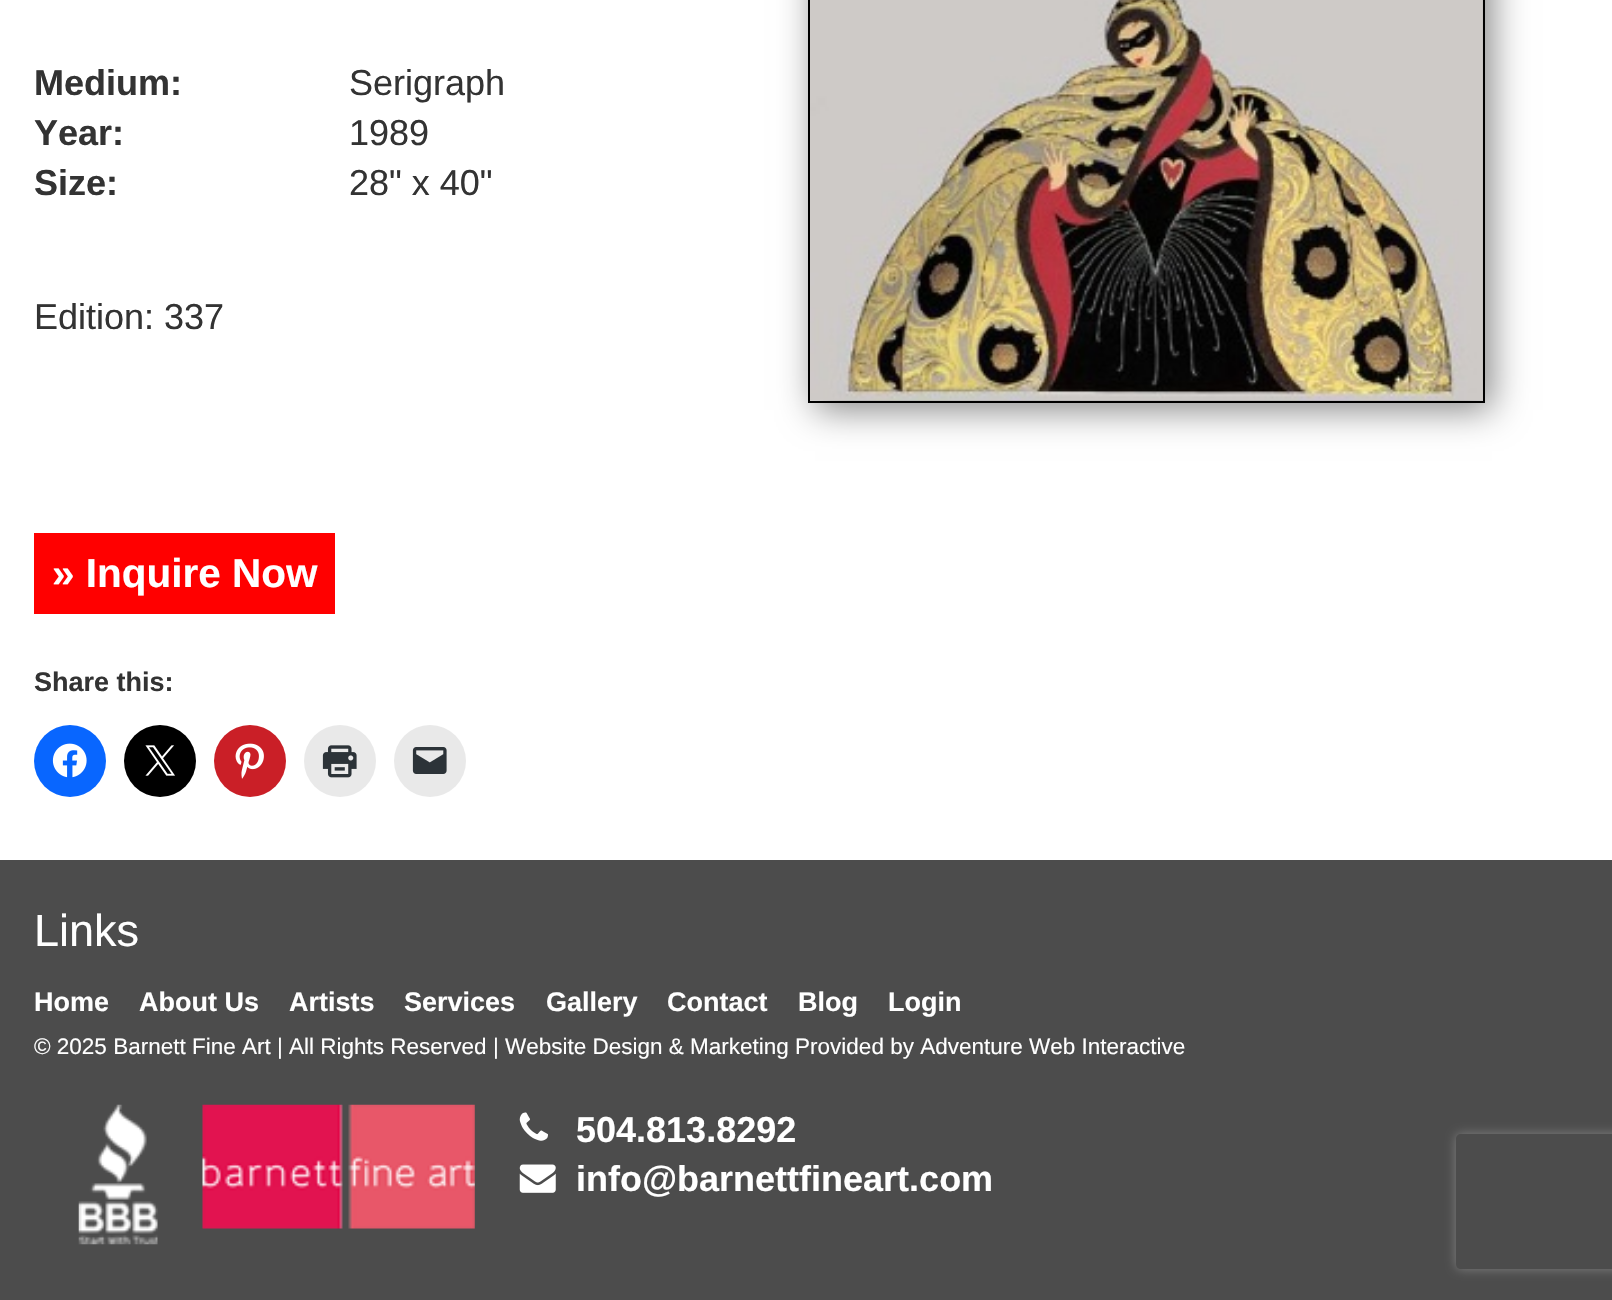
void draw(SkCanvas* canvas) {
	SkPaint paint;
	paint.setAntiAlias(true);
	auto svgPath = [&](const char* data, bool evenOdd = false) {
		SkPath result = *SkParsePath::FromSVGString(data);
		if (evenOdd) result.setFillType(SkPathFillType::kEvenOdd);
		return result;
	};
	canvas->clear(0xffffffff);
	SkFont f1(fontMgr->matchFamilyStyle("Liberation Sans", SkFontStyle::Bold()), 36);
	f1.setSubpixel(true);
	paint.setColor(0xff333333);
	canvas->drawString("Medium:", 34, 95, f1, paint);
	SkFont f2(fontMgr->matchFamilyStyle("Liberation Sans", SkFontStyle::Normal()), 36);
	f2.setSubpixel(true);
	canvas->drawString("Serigraph", 349, 95, f2, paint);
	canvas->drawString("Year:", 34, 145, f1, paint);
	canvas->drawString("1989", 349, 145, f2, paint);
	canvas->drawString("Size:", 34, 195, f1, paint);
	canvas->drawString("28\" x 40\"", 349, 195, f2, paint);
	canvas->drawString("Edition: 337", 34, 329, f2, paint);
	paint.setColor(0xff888888);
	paint.setMaskFilter(SkMaskFilter::MakeBlur(kNormal_SkBlurStyle, 17));
	canvas->drawRect(SkRect::MakeXYWH(815, -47, 677, 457), paint);
	paint.setMaskFilter(nullptr);
	paint.setStroke(true);
	paint.setStrokeWidth(2);
	paint.setColor(0xff000000);
	canvas->drawRect(SkRect::MakeXYWH(809, -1, 675, 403), paint);
	canvas->drawImageRect(SkImages::DeferredFromEncodedData(SkData::MakeFromFileName("img1.png")), SkRect::MakeXYWH(810, 0, 673, 401), SkSamplingOptions());
	paint.setStroke(false);
	paint.setColor(0xffff0000);
	canvas->drawRect(SkRect::MakeXYWH(34, 533, 301, 81), paint);
	SkFont f3(fontMgr->matchFamilyStyle("Liberation Sans", SkFontStyle::Bold()), 40.5);
	f3.setSubpixel(true);
	paint.setColor(0xffffffff);
	canvas->drawString("» Inquire Now", 52, 587, f3, paint);
	SkFont f4(fontMgr->matchFamilyStyle("Liberation Sans", SkFontStyle::Bold()), 27);
	f4.setSubpixel(true);
	paint.setColor(0xff333333);
	canvas->drawString("Share this:", 34, 691, f4, paint);
	paint.setColor(0xff0866ff);
	canvas->drawCircle(70, 761, 36, paint);
	canvas->drawImageRect(SkImages::DeferredFromEncodedData(SkData::MakeFromFileName("img2.png")), SkRect::MakeXYWH(52, 743, 35, 35), SkSamplingOptions());
	paint.setColor(0xff000000);
	canvas->drawCircle(160, 761, 36, paint);
	canvas->drawImageRect(SkImages::DeferredFromEncodedData(SkData::MakeFromFileName("img3.png")), SkRect::MakeXYWH(145, 745, 30, 31), SkSamplingOptions());
	paint.setColor(0xffca1f27);
	canvas->drawCircle(250, 761, 36, paint);
	canvas->drawImageRect(SkImages::DeferredFromEncodedData(SkData::MakeFromFileName("img4.png")), SkRect::MakeXYWH(235, 743, 29, 36), SkSamplingOptions());
	paint.setColor(0xffe9e9e9);
	canvas->drawCircle(340, 761, 36, paint);
	canvas->drawImageRect(SkImages::DeferredFromEncodedData(SkData::MakeFromFileName("img5.png")), SkRect::MakeXYWH(322, 745, 35, 33), SkSamplingOptions());
	canvas->drawCircle(430, 761, 36, paint);
	canvas->drawImageRect(SkImages::DeferredFromEncodedData(SkData::MakeFromFileName("img6.png")), SkRect::MakeXYWH(412, 747, 35, 27), SkSamplingOptions());
	paint.setColor(0xff4c4c4c);
	canvas->drawRect(SkRect::MakeXYWH(0, 860, 1612, 440), paint);
	SkFont f5(fontMgr->matchFamilyStyle("Liberation Sans", SkFontStyle::Normal()), 45);
	f5.setSubpixel(true);
	paint.setColor(0xffffffff);
	canvas->drawString("Links", 34, 946, f5, paint);
	canvas->drawString("Home", 34, 1011, f4, paint);
	canvas->drawString("About Us", 139, 1011, f4, paint);
	canvas->drawString("Artists", 289, 1011, f4, paint);
	canvas->drawString("Services", 404, 1011, f4, paint);
	canvas->drawString("Gallery", 546, 1011, f4, paint);
	canvas->drawString("Contact", 667, 1011, f4, paint);
	canvas->drawString("Blog", 798, 1011, f4, paint);
	canvas->drawString("Login", 888, 1011, f4, paint);
	SkFont f6(fontMgr->matchFamilyStyle("Liberation Sans", SkFontStyle::Normal()), 22.5);
	f6.setSubpixel(true);
	canvas->drawString("© 2025 Barnett Fine Art | All Rights Reserved | Website Design & Marketing Provided by Adventure Web Interactive", 34, 1054, f6, paint);
	canvas->drawImageRect(SkImages::DeferredFromEncodedData(SkData::MakeFromFileName("img7.png")), SkRect::MakeXYWH(78, 1104, 80, 141), SkSamplingOptions());
	canvas->drawImageRect(SkImages::DeferredFromEncodedData(SkData::MakeFromFileName("img8.png")), SkRect::MakeXYWH(202, 1104, 273, 125), SkSamplingOptions());
	canvas->drawImageRect(SkImages::DeferredFromEncodedData(SkData::MakeFromFileName("img9.png")), SkRect::MakeXYWH(519, 1112, 29, 29), SkSamplingOptions());
	canvas->drawString("504.813.8292", 576, 1142, f1, paint);
	canvas->drawImageRect(SkImages::DeferredFromEncodedData(SkData::MakeFromFileName("img10.png")), SkRect::MakeXYWH(519, 1164, 37, 29), SkSamplingOptions());
	canvas->drawString("info@barnettfineart.com", 576, 1191, f1, paint);
	canvas->save();
	canvas->clipPath(svgPath("M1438 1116H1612V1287H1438ZM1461 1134H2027C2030 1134 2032 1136 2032 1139V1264C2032 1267 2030 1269 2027 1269H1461C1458 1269 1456 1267 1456 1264V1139C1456 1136 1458 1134 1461 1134Z", true), true);
	paint.setColor(0xff808080);
	paint.setMaskFilter(SkMaskFilter::MakeBlur(kNormal_SkBlurStyle, 5.5));
	canvas->drawRoundRect(SkRect::MakeXYWH(1456, 1134, 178, 135), 5, 5, paint);
	paint.setMaskFilter(nullptr);
	canvas->restore();
}
